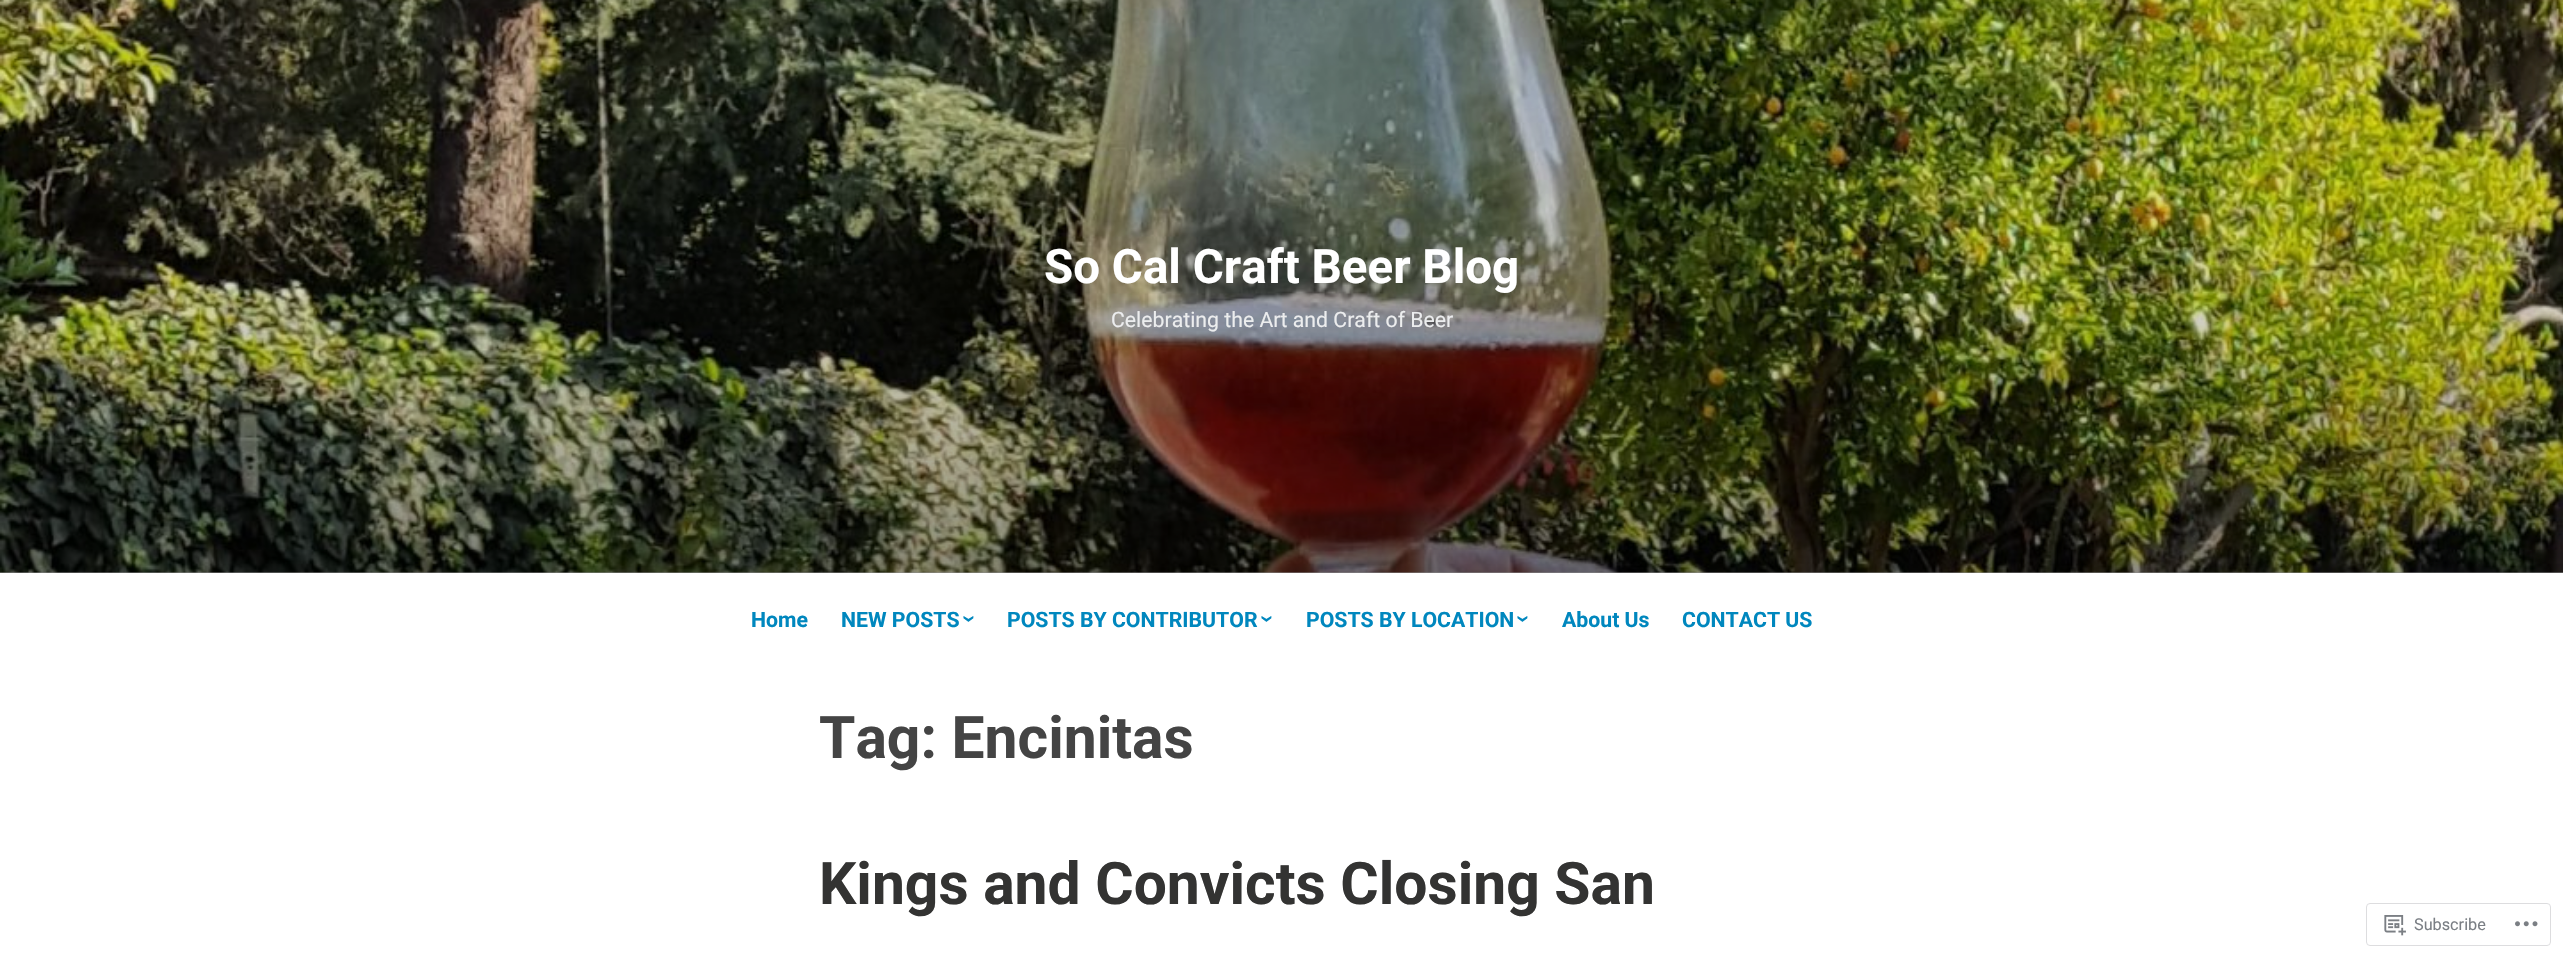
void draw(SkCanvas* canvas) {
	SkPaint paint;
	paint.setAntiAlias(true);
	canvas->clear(0xffffffff);
	canvas->drawImageRect(SkImages::DeferredFromEncodedData(SkData::MakeFromFileName("img1.png")), SkRect::MakeXYWH(0, 0, 2563, 573), SkSamplingOptions());
	{
		const SkColor colors[] = {0x26000000, 0x73000000};
		const float stops[] = {0.5, 1};
		const SkPoint ends[] = {{1282, 0}, {1282, 573}};
		paint.setShader(SkGradientShader::MakeLinear(ends, colors, stops, 2, SkTileMode::kClamp));
		paint.setAlpha(255);
	}
	canvas->drawRect(SkRect::MakeXYWH(0, 0, 2563, 573), paint);
	SkFont f1(fontMgr->matchFamilyStyle("Roboto", SkFontStyle::Bold()), 47.5);
	f1.setSubpixel(true);
	paint.setShader(nullptr);
	paint.setColor(0xffffffff);
	canvas->drawString("So Cal Craft Beer Blog", 1044, 283, f1, paint);
	SkFont f2(fontMgr->matchFamilyStyle("Roboto", SkFontStyle::Normal()), 21.25);
	f2.setSubpixel(true);
	paint.setColor(0xffecedee);
	canvas->drawString("Celebrating the Art and Craft of Beer", 1111, 327, f2, paint);
	SkFont f3(fontMgr->matchFamilyStyle("Roboto", SkFontStyle::Bold()), 21.25);
	f3.setSubpixel(true);
	paint.setColor(0xff0087be);
	canvas->drawString("Home", 751, 627, f3, paint);
	canvas->drawString("NEW POSTS", 841, 627, f3, paint);
	SkFont f4(fontMgr->matchFamilyStyle("Roboto", SkFontStyle::Bold()), 25);
	f4.setSubpixel(true);
	canvas->save();
	canvas->rotate(90, 962, 615);
	canvas->drawString("›", 962, 615, f4, paint);
	canvas->restore();
	canvas->drawString("POSTS BY CONTRIBUTOR", 1007, 627, f3, paint);
	canvas->save();
	canvas->rotate(90, 1260, 615);
	canvas->drawString("›", 1260, 615, f4, paint);
	canvas->restore();
	canvas->drawString("POSTS BY LOCATION", 1306, 627, f3, paint);
	canvas->save();
	canvas->rotate(90, 1516, 615);
	canvas->drawString("›", 1516, 615, f4, paint);
	canvas->restore();
	canvas->drawString("About Us", 1562, 627, f3, paint);
	canvas->drawString("CONTACT US", 1682, 627, f3, paint);
	SkFont f5(fontMgr->matchFamilyStyle("Roboto", SkFontStyle::Bold()), 58.75);
	f5.setSubpixel(true);
	paint.setColor(0xff444444);
	canvas->drawString("Tag: Encinitas", 819, 758, f5, paint);
	paint.setColor(0xff333332);
	canvas->drawString("Kings and Convicts Closing San", 819, 904, f5, paint);
	paint.setStroke(true);
	paint.setStrokeWidth(1);
	paint.setColor(0xffdddddf);
	canvas->drawRoundRect(SkRect::MakeXYWH(2366.5, 903.5, 184, 42), 3.5, 3.5, paint);
	canvas->drawImageRect(SkImages::DeferredFromEncodedData(SkData::MakeFromFileName("img2.png")), SkRect::MakeXYWH(2384, 915, 22, 21), SkSamplingOptions());
	SkFont f6(fontMgr->matchFamilyStyle("Roboto", SkFontStyle::Normal()), 16.25);
	f6.setSubpixel(true);
	paint.setStroke(false);
	paint.setColor(0xff7b7f85);
	canvas->drawString("Subscribe", 2414, 930, f6, paint);
	canvas->drawImageRect(SkImages::DeferredFromEncodedData(SkData::MakeFromFileName("img3.png")), SkRect::MakeXYWH(2515, 921, 23, 6), SkSamplingOptions());
}
